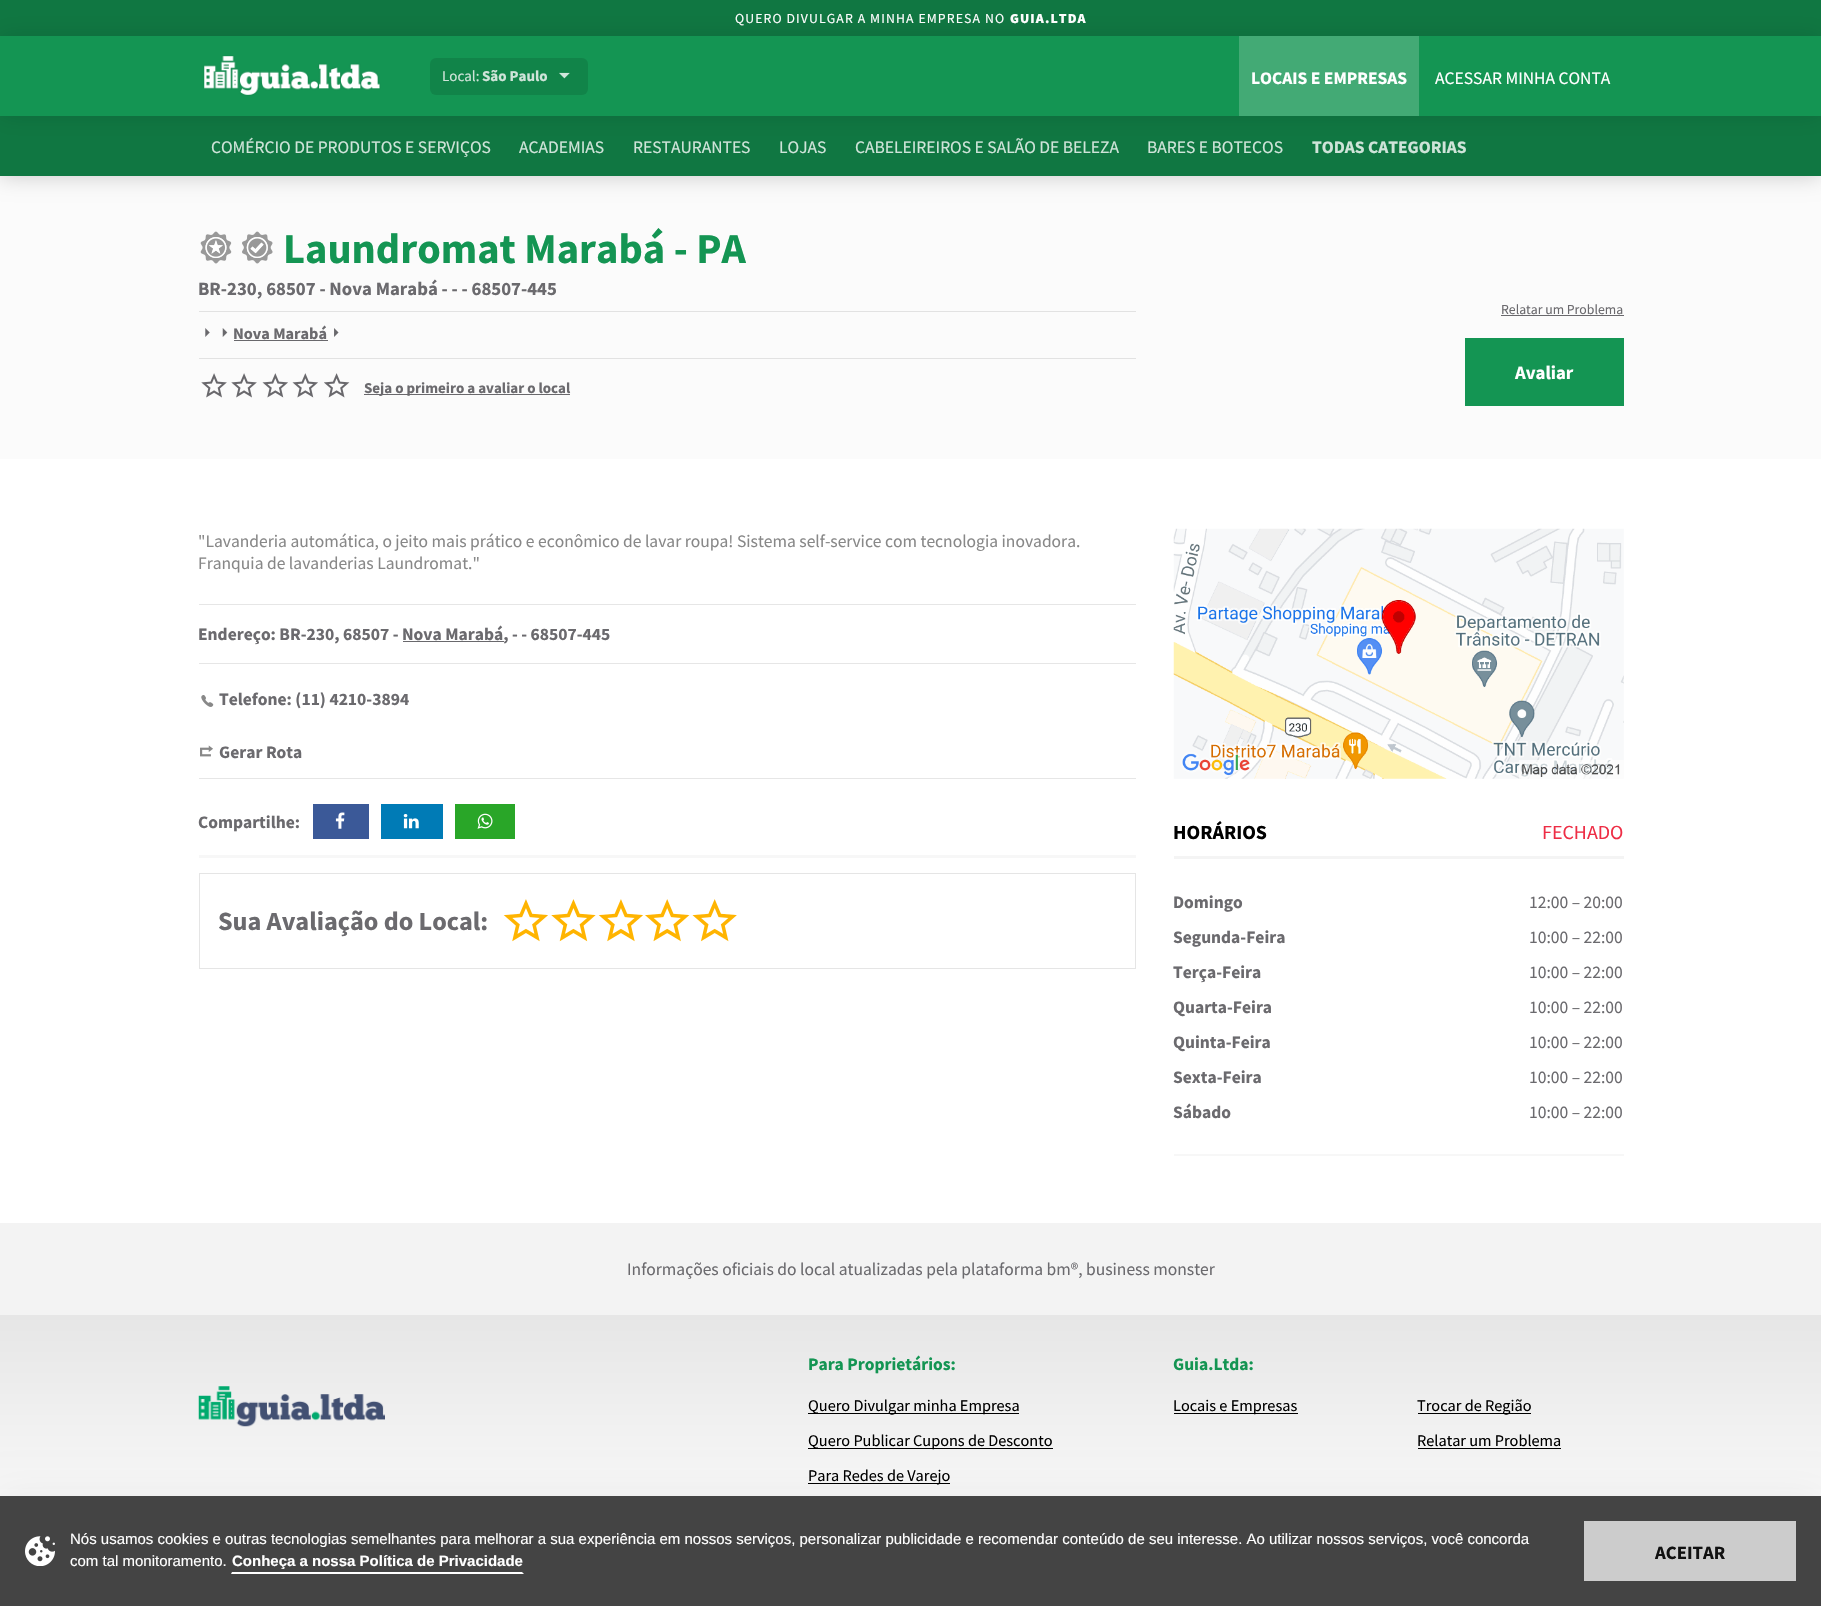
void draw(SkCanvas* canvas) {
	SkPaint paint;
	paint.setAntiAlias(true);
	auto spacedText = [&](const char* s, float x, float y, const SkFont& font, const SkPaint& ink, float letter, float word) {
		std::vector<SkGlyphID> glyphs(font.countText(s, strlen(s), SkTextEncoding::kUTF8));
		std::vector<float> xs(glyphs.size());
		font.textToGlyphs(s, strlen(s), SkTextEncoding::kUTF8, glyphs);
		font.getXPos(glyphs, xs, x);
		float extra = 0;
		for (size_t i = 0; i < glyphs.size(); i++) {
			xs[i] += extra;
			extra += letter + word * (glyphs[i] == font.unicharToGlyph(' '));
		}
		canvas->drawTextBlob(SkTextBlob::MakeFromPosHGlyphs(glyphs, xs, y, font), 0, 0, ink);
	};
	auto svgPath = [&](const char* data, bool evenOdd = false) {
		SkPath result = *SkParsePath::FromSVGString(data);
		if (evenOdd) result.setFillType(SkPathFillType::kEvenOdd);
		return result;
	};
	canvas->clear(0xffffffff);
	paint.setColor(0xff107742);
	canvas->drawRect(SkRect::MakeXYWH(0, 0, 1821, 36), paint);
	SkFont f1(fontMgr->matchFamilyStyle("Source Sans Pro", SkFontStyle::Normal()), 13.75);
	f1.setSubpixel(true);
	paint.setColor(0xffffffff);
	spacedText("QUERO DIVULGAR A MINHA EMPRESA NO", 735, 23, f1, paint, 1.1, 0);
	SkFont f2(fontMgr->matchFamilyStyle("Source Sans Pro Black", SkFontStyle(900, SkFontStyle::kNormal_Width, SkFontStyle::kUpright_Slant)), 13.75);
	f2.setSubpixel(true);
	spacedText("GUIA.LTDA", 1010, 23, f2, paint, 1.1, 0);
	paint.setColor(0xfffbfbfb);
	canvas->drawRect(SkRect::MakeXYWH(0, 176, 1821, 283), paint);
	paint.setColor(0x33000000);
	paint.setMaskFilter(SkMaskFilter::MakeBlur(kNormal_SkBlurStyle, 11));
	canvas->drawRect(SkRect::MakeXYWH(0, 116, 1821, 60), paint);
	paint.setMaskFilter(nullptr);
	paint.setColor(0xff107742);
	canvas->drawRect(SkRect::MakeXYWH(0, 116, 1821, 60), paint);
	paint.setColor(0x1a000000);
	paint.setMaskFilter(SkMaskFilter::MakeBlur(kNormal_SkBlurStyle, 11));
	canvas->drawRect(SkRect::MakeXYWH(0, 36, 1821, 80), paint);
	paint.setMaskFilter(nullptr);
	paint.setColor(0xff149553);
	canvas->drawRect(SkRect::MakeXYWH(0, 36, 1821, 80), paint);
	canvas->drawImageRect(SkImages::DeferredFromEncodedData(SkData::MakeFromFileName("img1.png")), SkRect::MakeXYWH(203, 55, 178, 41), SkSamplingOptions());
	paint.setColor(0xff118449);
	canvas->drawRoundRect(SkRect::MakeXYWH(430, 58, 158, 37), 6, 6, paint);
	SkFont f3(fontMgr->matchFamilyStyle("Source Sans Pro", SkFontStyle::Normal()), 15);
	f3.setSubpixel(true);
	paint.setColor(0xffcfe4d9);
	canvas->drawString("Local:", 442, 81, f3, paint);
	SkFont f4(fontMgr->matchFamilyStyle("Source Sans Pro", SkFontStyle::Bold()), 15);
	f4.setSubpixel(true);
	canvas->drawString("São Paulo", 482, 81, f4, paint);
	canvas->drawImageRect(SkImages::DeferredFromEncodedData(SkData::MakeFromFileName("img2.png")), SkRect::MakeXYWH(559, 72, 11, 7), SkSamplingOptions());
	paint.setColor(0xff43aa75);
	canvas->drawRect(SkRect::MakeXYWH(1239, 36, 180, 80), paint);
	SkFont f5(fontMgr->matchFamilyStyle("Source Sans Pro", SkFontStyle::Bold()), 17.5);
	f5.setSubpixel(true);
	paint.setColor(0xffffffff);
	canvas->drawString("LOCAIS E EMPRESAS", 1251, 84, f5, paint);
	SkFont f6(fontMgr->matchFamilyStyle("Source Sans Pro", SkFontStyle::Normal()), 17.5);
	f6.setSubpixel(true);
	canvas->drawString("ACESSAR MINHA CONTA", 1435, 84, f6, paint);
	paint.setColor(0xffcfe4d9);
	canvas->drawString("COMÉRCIO DE PRODUTOS E SERVIÇOS", 211, 153, f6, paint);
	canvas->drawString("ACADEMIAS", 519, 153, f6, paint);
	canvas->drawString("RESTAURANTES", 633, 153, f6, paint);
	canvas->drawString("LOJAS", 779, 153, f6, paint);
	canvas->drawString("CABELEIREIROS E SALÃO DE BELEZA", 855, 153, f6, paint);
	canvas->drawString("BARES E BOTECOS", 1147, 153, f6, paint);
	canvas->drawString("TODAS CATEGORIAS", 1312, 153, f5, paint);
	canvas->drawImageRect(SkImages::DeferredFromEncodedData(SkData::MakeFromFileName("img3.png")), SkRect::MakeXYWH(200, 231, 32, 33), SkSamplingOptions());
	canvas->drawImageRect(SkImages::DeferredFromEncodedData(SkData::MakeFromFileName("img4.png")), SkRect::MakeXYWH(242, 231, 31, 33), SkSamplingOptions());
	SkFont f7(fontMgr->matchFamilyStyle("Source Sans Pro", SkFontStyle::Bold()), 42.5);
	f7.setSubpixel(true);
	paint.setColor(0xff149553);
	canvas->drawString("Laundromat Marabá - PA", 283, 263, f7, paint);
	canvas->drawImageRect(SkImages::DeferredFromEncodedData(SkData::MakeFromFileName("img5.png")), SkRect::MakeXYWH(205, 237, 22, 21), SkSamplingOptions());
	canvas->drawImageRect(SkImages::DeferredFromEncodedData(SkData::MakeFromFileName("img6.png")), SkRect::MakeXYWH(246, 237, 22, 21), SkSamplingOptions());
	canvas->drawImageRect(SkImages::DeferredFromEncodedData(SkData::MakeFromFileName("img7.png")), SkRect::MakeXYWH(206, 238, 19, 19), SkSamplingOptions());
	canvas->drawImageRect(SkImages::DeferredFromEncodedData(SkData::MakeFromFileName("img8.png")), SkRect::MakeXYWH(248, 238, 19, 19), SkSamplingOptions());
	canvas->drawImageRect(SkImages::DeferredFromEncodedData(SkData::MakeFromFileName("img9.png")), SkRect::MakeXYWH(209, 240, 14, 14), SkSamplingOptions());
	canvas->drawImageRect(SkImages::DeferredFromEncodedData(SkData::MakeFromFileName("img10.png")), SkRect::MakeXYWH(250, 242, 14, 12), SkSamplingOptions());
	paint.setColor(0xffe2e2e2);
	canvas->drawRect(SkRect::MakeXYWH(199, 311, 937, 1), paint);
	SkFont f8(fontMgr->matchFamilyStyle("Source Sans Pro", SkFontStyle::Bold()), 18.75);
	f8.setSubpixel(true);
	paint.setColor(0xff6b6a6e);
	canvas->drawString("BR-230, 68507 - Nova Marabá - - - 68507-445", 198, 295, f8, paint);
	canvas->drawImageRect(SkImages::DeferredFromEncodedData(SkData::MakeFromFileName("img11.png")), SkRect::MakeXYWH(205, 328, 5, 9), SkSamplingOptions());
	canvas->drawImageRect(SkImages::DeferredFromEncodedData(SkData::MakeFromFileName("img12.png")), SkRect::MakeXYWH(222, 328, 6, 9), SkSamplingOptions());
	SkFont f9(fontMgr->matchFamilyStyle("Source Sans Pro", SkFontStyle::Bold()), 16.25);
	f9.setSubpixel(true);
	canvas->drawString("Nova Marabá", 233, 339, f9, paint);
	paint.setColor(0xff69686c);
	canvas->drawRect(SkRect::MakeXYWH(234, 340, 94, 1), paint);
	canvas->drawImageRect(SkImages::DeferredFromEncodedData(SkData::MakeFromFileName("img13.png")), SkRect::MakeXYWH(334, 328, 5, 9), SkSamplingOptions());
	paint.setColor(0xffe2e2e2);
	canvas->drawRect(SkRect::MakeXYWH(199, 358, 937, 1), paint);
	canvas->drawImageRect(SkImages::DeferredFromEncodedData(SkData::MakeFromFileName("img14.png")), SkRect::MakeXYWH(201, 373, 26, 25), SkSamplingOptions());
	canvas->drawImageRect(SkImages::DeferredFromEncodedData(SkData::MakeFromFileName("img14.png")), SkRect::MakeXYWH(231, 373, 26, 25), SkSamplingOptions());
	canvas->drawImageRect(SkImages::DeferredFromEncodedData(SkData::MakeFromFileName("img15.png")), SkRect::MakeXYWH(262, 373, 26, 25), SkSamplingOptions());
	canvas->drawImageRect(SkImages::DeferredFromEncodedData(SkData::MakeFromFileName("img15.png")), SkRect::MakeXYWH(292, 373, 26, 25), SkSamplingOptions());
	canvas->drawImageRect(SkImages::DeferredFromEncodedData(SkData::MakeFromFileName("img16.png")), SkRect::MakeXYWH(324, 373, 26, 25), SkSamplingOptions());
	paint.setColor(0xff69686c);
	canvas->drawRect(SkRect::MakeXYWH(364, 394, 206, 1), paint);
	paint.setColor(0xff6b6a6e);
	canvas->drawString("Seja o primeiro a avaliar o local", 364, 393, f4, paint);
	canvas->drawString("Relatar um Problema", 1501, 314, f1, paint);
	paint.setColor(0xff69686c);
	canvas->drawRect(SkRect::MakeXYWH(1501, 315, 123, 1), paint);
	paint.setColor(0xff149553);
	canvas->drawRect(SkRect::MakeXYWH(1465, 338, 159, 68), paint);
	paint.setColor(0xffffffff);
	canvas->drawString("Avaliar", 1515, 379, f8, paint);
	paint.setColor(0xfff7f7f7);
	canvas->drawRect(SkRect::MakeXYWH(199, 855, 937, 3), paint);
	paint.setColor(0xff888888);
	canvas->drawString("\"Lavanderia automática, o jeito mais prático e econômico de lavar roupa! Sistema self-service com tecnologia inovadora.", 198, 547, f6, paint);
	canvas->drawString("Franquia de lavanderias Laundromat.\"", 198, 569, f6, paint);
	paint.setColor(0xffe6e6e6);
	canvas->drawRect(SkRect::MakeXYWH(199, 604, 937, 1), paint);
	paint.setColor(0xff6b6a6e);
	canvas->drawString("Endereço: BR-230, 68507 - Nova Marabá, - - 68507-445", 198, 640, f5, paint);
	paint.setColor(0xff69686c);
	canvas->drawRect(SkRect::MakeXYWH(403, 641, 101, 1), paint);
	paint.setColor(0xffe6e6e6);
	canvas->drawRect(SkRect::MakeXYWH(199, 663, 937, 1), paint);
	canvas->drawImageRect(SkImages::DeferredFromEncodedData(SkData::MakeFromFileName("img17.png")), SkRect::MakeXYWH(201, 695, 13, 12), SkSamplingOptions());
	paint.setColor(0xff6b6a6e);
	canvas->drawString("Telefone: (11) 4210-3894", 219, 705, f5, paint);
	canvas->drawImageRect(SkImages::DeferredFromEncodedData(SkData::MakeFromFileName("img18.png")), SkRect::MakeXYWH(200, 745, 13, 12), SkSamplingOptions());
	canvas->drawString("Gerar Rota", 219, 758, f5, paint);
	paint.setColor(0xffe6e6e6);
	canvas->drawRect(SkRect::MakeXYWH(199, 778, 937, 1), paint);
	paint.setColor(0xff6b6a6e);
	canvas->drawString("Compartilhe:", 198, 828, f5, paint);
	paint.setColor(0xff3b5998);
	canvas->drawRect(SkRect::MakeXYWH(313, 804, 56, 35), paint);
	canvas->drawImageRect(SkImages::DeferredFromEncodedData(SkData::MakeFromFileName("img19.png")), SkRect::MakeXYWH(335, 812, 10, 17), SkSamplingOptions());
	paint.setColor(0xff007bb6);
	canvas->drawRect(SkRect::MakeXYWH(381, 804, 62, 35), paint);
	canvas->drawImageRect(SkImages::DeferredFromEncodedData(SkData::MakeFromFileName("img20.png")), SkRect::MakeXYWH(403, 814, 16, 15), SkSamplingOptions());
	paint.setColor(0xff29a628);
	canvas->drawRect(SkRect::MakeXYWH(455, 804, 60, 35), paint);
	canvas->drawImageRect(SkImages::DeferredFromEncodedData(SkData::MakeFromFileName("img21.png")), SkRect::MakeXYWH(477, 813, 16, 16), SkSamplingOptions());
	paint.setStroke(true);
	paint.setStrokeWidth(1);
	paint.setColor(0xffe5e5e5);
	canvas->drawRect(SkRect::MakeXYWH(199.5, 873.5, 936, 95), paint);
	SkFont f10(fontMgr->matchFamilyStyle("Source Sans Pro", SkFontStyle::Bold()), 26.25);
	f10.setSubpixel(true);
	paint.setStroke(false);
	paint.setColor(0xff6b6a6e);
	canvas->drawString("Sua Avaliação do Local:", 218, 930, f10, paint);
	canvas->drawImageRect(SkImages::DeferredFromEncodedData(SkData::MakeFromFileName("img22.png")), SkRect::MakeXYWH(503, 899, 45, 43), SkSamplingOptions());
	canvas->drawImageRect(SkImages::DeferredFromEncodedData(SkData::MakeFromFileName("img23.png")), SkRect::MakeXYWH(551, 899, 45, 43), SkSamplingOptions());
	canvas->drawImageRect(SkImages::DeferredFromEncodedData(SkData::MakeFromFileName("img22.png")), SkRect::MakeXYWH(598, 899, 45, 43), SkSamplingOptions());
	canvas->drawImageRect(SkImages::DeferredFromEncodedData(SkData::MakeFromFileName("img24.png")), SkRect::MakeXYWH(645, 899, 45, 43), SkSamplingOptions());
	canvas->drawImageRect(SkImages::DeferredFromEncodedData(SkData::MakeFromFileName("img25.png")), SkRect::MakeXYWH(692, 899, 45, 43), SkSamplingOptions());
	canvas->drawImageRect(SkImages::DeferredFromEncodedData(SkData::MakeFromFileName("img26.png")), SkRect::MakeXYWH(1173, 528, 451, 251), SkSamplingOptions());
	paint.setColor(0xfff7f7f7);
	canvas->drawPath(svgPath("M1174 1154V1156H1624V799V1154Z"), paint);
	paint.setColor(0xfff4f4f4);
	canvas->drawRect(SkRect::MakeXYWH(1174, 856, 450, 3), paint);
	SkFont f11(fontMgr->matchFamilyStyle("Source Sans Pro", SkFontStyle::Bold()), 20);
	f11.setSubpixel(true);
	paint.setColor(0xff000000);
	canvas->drawString("HORÁRIOS", 1173, 839, f11, paint);
	SkFont f12(fontMgr->matchFamilyStyle("Source Sans Pro", SkFontStyle::Normal()), 20);
	f12.setSubpixel(true);
	paint.setColor(0xffee2d45);
	canvas->drawString("FECHADO", 1542, 839, f12, paint);
	paint.setColor(0xff6b6a6e);
	canvas->drawString("Domingo", 1173, 908, f5, paint);
	canvas->drawString("12:00 – 20:00", 1529, 908, f6, paint);
	canvas->drawString("Segunda-Feira", 1173, 943, f5, paint);
	canvas->drawString("10:00 – 22:00", 1529, 943, f6, paint);
	canvas->drawString("Terça-Feira", 1173, 978, f5, paint);
	canvas->drawString("10:00 – 22:00", 1529, 978, f6, paint);
	canvas->drawString("Quarta-Feira", 1173, 1013, f5, paint);
	canvas->drawString("10:00 – 22:00", 1529, 1013, f6, paint);
	canvas->drawString("Quinta-Feira", 1173, 1048, f5, paint);
	canvas->drawString("10:00 – 22:00", 1529, 1048, f6, paint);
	canvas->drawString("Sexta-Feira", 1173, 1083, f5, paint);
	canvas->drawString("10:00 – 22:00", 1529, 1083, f6, paint);
	canvas->drawString("Sábado", 1173, 1118, f5, paint);
	canvas->drawString("10:00 – 22:00", 1529, 1118, f6, paint);
	paint.setColor(0xfff3f3f3);
	canvas->drawRect(SkRect::MakeXYWH(0, 1223, 1821, 92), paint);
	paint.setColor(0xff6b6a6e);
	canvas->drawString("Informações oficiais do local atualizadas pela plataforma bm®, business monster", 627, 1275, f6, paint);
	{
		const SkColor colors[] = {0xffe6e6e6, 0xfffbfbfb};
		const float stops[] = {0, 1};
		const SkPoint ends[] = {{911, 1315}, {911, 1536}};
		paint.setShader(SkGradientShader::MakeLinear(ends, colors, stops, 2, SkTileMode::kClamp));
		paint.setAlpha(255);
	}
	canvas->drawRect(SkRect::MakeXYWH(0, 1315, 1821, 181), paint);
	canvas->drawImageRect(SkImages::DeferredFromEncodedData(SkData::MakeFromFileName("img27.png")), SkRect::MakeXYWH(198, 1386, 187, 41), SkSamplingOptions());
	paint.setShader(nullptr);
	paint.setColor(0xff149553);
	canvas->drawString("Para Proprietários:", 808, 1370, f5, paint);
	paint.setColor(0xff000000);
	canvas->drawRect(SkRect::MakeXYWH(808, 1413, 211, 1), paint);
	SkFont f13(fontMgr->matchFamilyStyle("Source Sans Pro", SkFontStyle::Normal()), 16.25);
	f13.setSubpixel(true);
	canvas->drawString("Quero Divulgar minha Empresa", 808, 1411, f13, paint);
	canvas->drawRect(SkRect::MakeXYWH(808, 1448, 245, 1), paint);
	canvas->drawString("Quero Publicar Cupons de Desconto", 808, 1446, f13, paint);
	canvas->drawRect(SkRect::MakeXYWH(808, 1483, 142, 1), paint);
	canvas->drawString("Para Redes de Varejo", 808, 1481, f13, paint);
	paint.setColor(0xff149553);
	canvas->drawString("Guia.Ltda:", 1173, 1370, f5, paint);
	paint.setColor(0xff000000);
	canvas->drawRect(SkRect::MakeXYWH(1174, 1413, 124, 1), paint);
	canvas->drawString("Locais e Empresas", 1173, 1411, f13, paint);
	canvas->drawRect(SkRect::MakeXYWH(1418, 1413, 113, 1), paint);
	canvas->drawString("Trocar de Região", 1417, 1411, f13, paint);
	canvas->drawString("Relatar um Problema", 1417, 1446, f13, paint);
	canvas->drawRect(SkRect::MakeXYWH(1418, 1448, 143, 1), paint);
	paint.setColor(0x0d000000);
	paint.setMaskFilter(SkMaskFilter::MakeBlur(kNormal_SkBlurStyle, 19));
	canvas->drawRect(SkRect::MakeXYWH(0, 1496, 1821, 110), paint);
	paint.setMaskFilter(nullptr);
	paint.setColor(0xff444444);
	canvas->drawRect(SkRect::MakeXYWH(0, 1496, 1821, 110), paint);
	canvas->drawImageRect(SkImages::DeferredFromEncodedData(SkData::MakeFromFileName("img28.png")), SkRect::MakeXYWH(25, 1536, 30, 30), SkSamplingOptions());
	SkFont f14(fontMgr->matchFamilyStyle("Liberation Sans", SkFontStyle::Normal()), 15);
	f14.setSubpixel(true);
	paint.setColor(0xffffffff);
	canvas->drawString("Nós usamos cookies e outras tecnologias semelhantes para melhorar a sua experiência em nossos serviços, personalizar publicidade e recomendar conteúdo de seu interesse. Ao utilizar nossos serviços, você concorda", 70, 1544, f14, paint);
	canvas->drawString("com tal monitoramento.", 70, 1566, f14, paint);
	canvas->drawPath(svgPath("M524 1574H231L232 1572H522Z"), paint);
	SkFont f15(fontMgr->matchFamilyStyle("Liberation Sans", SkFontStyle::Bold()), 15);
	f15.setSubpixel(true);
	canvas->drawString("Conheça a nossa Política de Privacidade", 232, 1566, f15, paint);
	paint.setColor(0xffcccccc);
	canvas->drawRect(SkRect::MakeXYWH(1584, 1521, 212, 60), paint);
	paint.setColor(0xff111111);
	canvas->drawString("ACEITAR", 1655, 1559, f8, paint);
}
